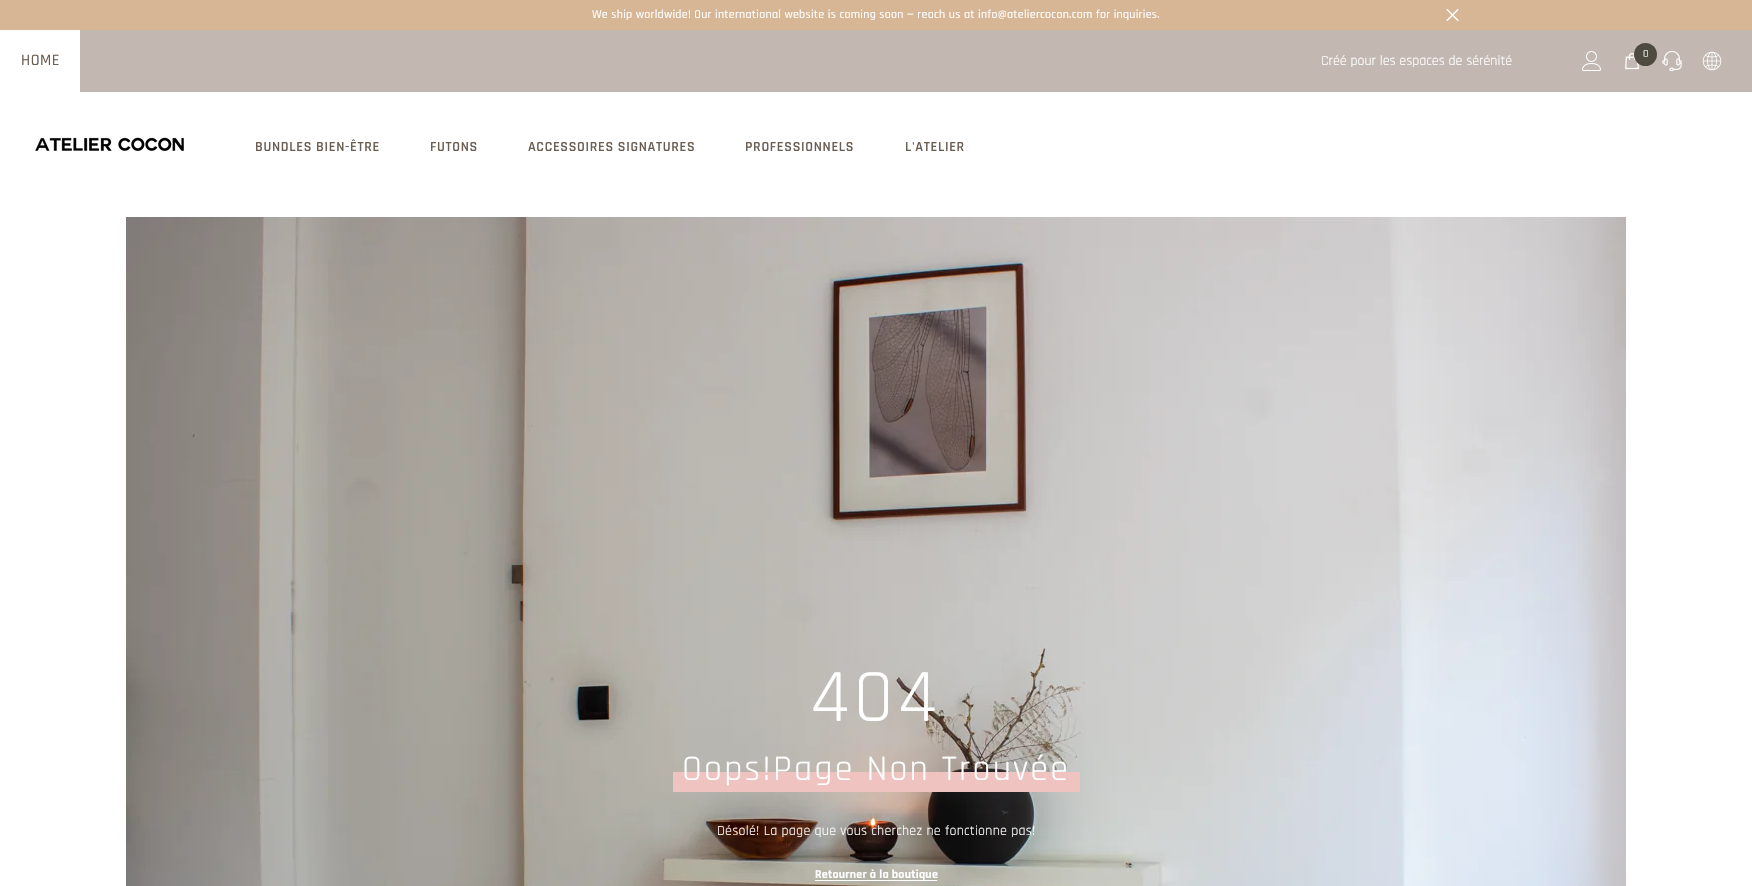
void draw(SkCanvas* canvas) {
	SkPaint paint;
	paint.setAntiAlias(true);
	auto spacedText = [&](const char* s, float x, float y, const SkFont& font, const SkPaint& ink, float letter, float word) {
		std::vector<SkGlyphID> glyphs(font.countText(s, strlen(s), SkTextEncoding::kUTF8));
		std::vector<float> xs(glyphs.size());
		font.textToGlyphs(s, strlen(s), SkTextEncoding::kUTF8, glyphs);
		font.getXPos(glyphs, xs, x);
		float extra = 0;
		for (size_t i = 0; i < glyphs.size(); i++) {
			xs[i] += extra;
			extra += letter + word * (glyphs[i] == font.unicharToGlyph(' '));
		}
		canvas->drawTextBlob(SkTextBlob::MakeFromPosHGlyphs(glyphs, xs, y, font), 0, 0, ink);
	};
	canvas->clear(0xffffffff);
	paint.setColor(0xffd6b695);
	canvas->drawRect(SkRect::MakeXYWH(0, 0, 1752, 30), paint);
	SkFont f1(fontMgr->matchFamilyStyle("Rajdhani", SkFontStyle(500, SkFontStyle::kNormal_Width, SkFontStyle::kUpright_Slant)), 12);
	f1.setSubpixel(true);
	paint.setColor(0xffffffff);
	spacedText("We ship worldwide! Our international website is coming soon — reach us at info@ateliercocon.com for inquiries.", 592, 18, f1, paint, 0.26, 0);
	canvas->drawImageRect(SkImages::DeferredFromEncodedData(SkData::MakeFromFileName("img1.png")), SkRect::MakeXYWH(1446, 9, 13, 12), SkSamplingOptions());
	paint.setColor(0xffc2b8b1);
	canvas->drawRect(SkRect::MakeXYWH(80, 30, 1672, 62), paint);
	SkFont f2(fontMgr->matchFamilyStyle("Rajdhani", SkFontStyle(500, SkFontStyle::kNormal_Width, SkFontStyle::kUpright_Slant)), 16);
	f2.setSubpixel(true);
	paint.setColor(0xff6a5d52);
	spacedText("HOME", 21, 65, f2, paint, 0.5, 0);
	canvas->drawImageRect(SkImages::DeferredFromEncodedData(SkData::MakeFromFileName("img2.png")), SkRect::MakeXYWH(1582, 51, 19, 20), SkSamplingOptions());
	canvas->drawImageRect(SkImages::DeferredFromEncodedData(SkData::MakeFromFileName("img3.png")), SkRect::MakeXYWH(1625, 53, 14, 17), SkSamplingOptions());
	paint.setColor(0xff4f4a3f);
	canvas->drawCircle(1645.5, 54.5, 11.5, paint);
	SkFont f3(fontMgr->matchFamilyStyle("Rajdhani", SkFontStyle::Normal()), 11);
	f3.setSubpixel(true);
	paint.setColor(0xffffffff);
	canvas->drawString("0", 1643, 57, f3, paint);
	canvas->drawImageRect(SkImages::DeferredFromEncodedData(SkData::MakeFromFileName("img4.png")), SkRect::MakeXYWH(1662, 51, 20, 20), SkSamplingOptions());
	canvas->drawImageRect(SkImages::DeferredFromEncodedData(SkData::MakeFromFileName("img5.png")), SkRect::MakeXYWH(1702, 51, 20, 20), SkSamplingOptions());
	SkFont f4(fontMgr->matchFamilyStyle("Rajdhani", SkFontStyle::Normal()), 14);
	f4.setSubpixel(true);
	canvas->drawString("Créé pour les espaces de sérénité", 1321, 65, f4, paint);
	canvas->drawImageRect(SkImages::DeferredFromEncodedData(SkData::MakeFromFileName("img6.png")), SkRect::MakeXYWH(35, 137, 149, 14), SkSamplingOptions());
	SkFont f5(fontMgr->matchFamilyStyle("Rajdhani", SkFontStyle(600, SkFontStyle::kNormal_Width, SkFontStyle::kUpright_Slant)), 14);
	f5.setSubpixel(true);
	paint.setColor(0xff6a5d52);
	spacedText("BUNDLES BIEN-ÊTRE", 255, 151, f5, paint, 0.7, 0);
	spacedText("FUTONS", 430, 151, f5, paint, 0.7, 0);
	spacedText("ACCESSOIRES SIGNATURES", 528, 151, f5, paint, 0.7, 0);
	spacedText("PROFESSIONNELS", 745, 151, f5, paint, 0.7, 0);
	spacedText("L'ATELIER", 905, 151, f5, paint, 0.7, 0);
	canvas->drawImageRect(SkImages::DeferredFromEncodedData(SkData::MakeFromFileName("img7.png")), SkRect::MakeXYWH(126, 217, 1500, 669), SkSamplingOptions());
	SkFont f6(fontMgr->matchFamilyStyle("Rajdhani", SkFontStyle::Normal()), 76);
	f6.setSubpixel(true);
	paint.setColor(0xffffffff);
	spacedText("404", 810, 721, f6, paint, 4.5, 0);
	paint.setColor(0xffefc3c0);
	canvas->drawRect(SkRect::MakeXYWH(673, 772, 407, 20), paint);
	SkFont f7(fontMgr->matchFamilyStyle("Rajdhani", SkFontStyle::Normal()), 36);
	f7.setSubpixel(true);
	paint.setColor(0xffffffff);
	spacedText("Oops!Page Non Trouvée", 682, 780, f7, paint, 2.2, 0);
	spacedText("Désolé! La page que vous cherchez ne fonctionne pas!", 717, 835, f4, paint, 0.26, 0);
	SkFont f8(fontMgr->matchFamilyStyle("Rajdhani", SkFontStyle::Bold()), 12);
	f8.setSubpixel(true);
	spacedText("Retourner à la boutique", 815, 878, f8, paint, 0.25, 0);
	canvas->drawRect(SkRect::MakeXYWH(815, 880, 122, 1), paint);
}
